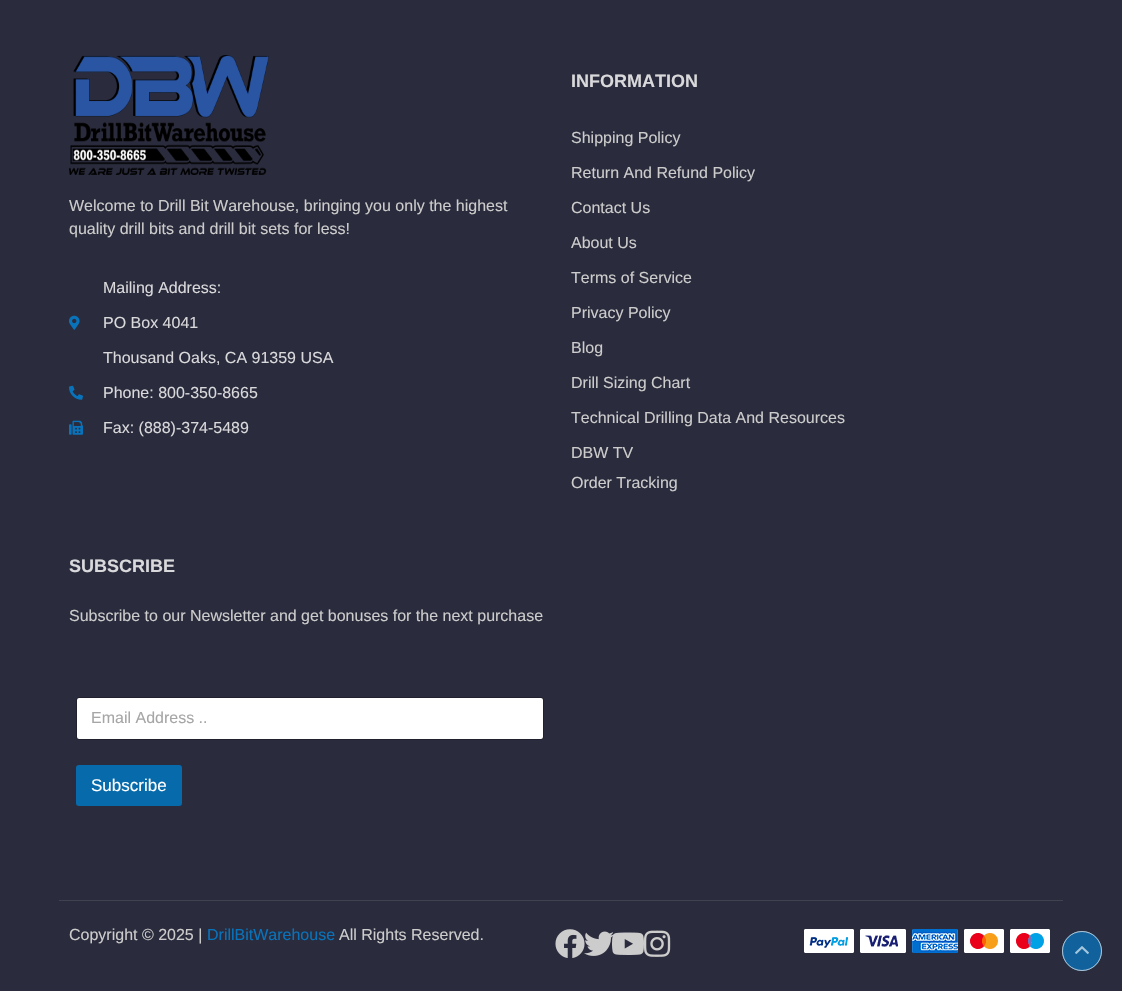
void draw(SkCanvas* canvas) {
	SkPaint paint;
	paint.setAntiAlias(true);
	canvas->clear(0xff2a2c3d);
	canvas->drawImageRect(SkImages::DeferredFromEncodedData(SkData::MakeFromFileName("img1.png")), SkRect::MakeXYWH(69, 55, 200, 120), SkSamplingOptions());
	SkFont f1(fontMgr->matchFamilyStyle("Liberation Sans", SkFontStyle::Normal()), 16);
	f1.setSubpixel(true);
	paint.setColor(0xffcccccc);
	canvas->drawString("Welcome to Drill Bit Warehouse, bringing you only the highest", 69, 211, f1, paint);
	canvas->drawString("quality drill bits and drill bit sets for less!", 69, 234, f1, paint);
	canvas->drawImageRect(SkImages::DeferredFromEncodedData(SkData::MakeFromFileName("img2.png")), SkRect::MakeXYWH(69, 315, 11, 15), SkSamplingOptions());
	paint.setColor(0xffd9d9dc);
	canvas->drawString("Mailing Address:", 103, 293, f1, paint);
	canvas->drawString("PO Box 4041", 103, 328, f1, paint);
	canvas->drawString("Thousand Oaks, CA 91359 USA", 103, 363, f1, paint);
	canvas->drawImageRect(SkImages::DeferredFromEncodedData(SkData::MakeFromFileName("img3.png")), SkRect::MakeXYWH(69, 385, 14, 15), SkSamplingOptions());
	canvas->drawString("Phone: 800-350-8665", 103, 398, f1, paint);
	canvas->drawImageRect(SkImages::DeferredFromEncodedData(SkData::MakeFromFileName("img4.png")), SkRect::MakeXYWH(69, 420, 14, 15), SkSamplingOptions());
	canvas->drawString("Fax: (888)-374-5489", 103, 433, f1, paint);
	SkFont f2(fontMgr->matchFamilyStyle("Liberation Sans", SkFontStyle::Bold()), 18);
	f2.setSubpixel(true);
	canvas->drawString("INFORMATION", 571, 87, f2, paint);
	paint.setColor(0xffcccccc);
	canvas->drawString("Shipping Policy", 571, 143, f1, paint);
	canvas->drawString("Return And Refund Policy", 571, 178, f1, paint);
	canvas->drawString("Contact Us", 571, 213, f1, paint);
	canvas->drawString("About Us", 571, 248, f1, paint);
	canvas->drawString("Terms of Service", 571, 283, f1, paint);
	canvas->drawString("Privacy Policy", 571, 318, f1, paint);
	canvas->drawString("Blog", 571, 353, f1, paint);
	canvas->drawString("Drill Sizing Chart", 571, 388, f1, paint);
	canvas->drawString("Technical Drilling Data And Resources", 571, 423, f1, paint);
	canvas->drawString("DBW TV", 571, 458, f1, paint);
	canvas->drawString("Order Tracking", 571, 488, f1, paint);
	paint.setColor(0xffd9d9dc);
	canvas->drawString("SUBSCRIBE", 69, 572, f2, paint);
	paint.setColor(0xffcccccc);
	canvas->drawString("Subscribe to our Newsletter and get bonuses for the next purchase", 69, 621, f1, paint);
	paint.setColor(0xffffffff);
	canvas->drawRoundRect(SkRect::MakeXYWH(77, 698, 466, 41), 2, 2, paint);
	paint.setStroke(true);
	paint.setStrokeWidth(1);
	paint.setColor(0x40000000);
	canvas->drawRoundRect(SkRect::MakeXYWH(76.5, 697.5, 467, 42), 2.5, 2.5, paint);
	paint.setStroke(false);
	paint.setColor(0xffa6a6a6);
	canvas->drawString("Email Address ..", 91, 723, f1, paint);
	paint.setColor(0xff066aab);
	canvas->drawRoundRect(SkRect::MakeXYWH(76, 765, 106, 41), 3, 3, paint);
	SkFont f3(fontMgr->matchFamilyStyle("Liberation Sans", SkFontStyle::Normal()), 17);
	f3.setSubpixel(true);
	paint.setColor(0xffffffff);
	canvas->drawString("Subscribe", 91, 791, f3, paint);
	paint.setColor(0xff404250);
	canvas->drawRect(SkRect::MakeXYWH(59, 900, 1004, 1), paint);
	paint.setColor(0xffcccccc);
	canvas->drawString("Copyright © 2025 |", 69, 940, f1, paint);
	paint.setColor(0xff0873bb);
	canvas->drawString("DrillBitWarehouse", 207, 940, f1, paint);
	paint.setColor(0xffcccccc);
	canvas->drawString("All Rights Reserved.", 339, 940, f1, paint);
	canvas->drawImageRect(SkImages::DeferredFromEncodedData(SkData::MakeFromFileName("img5.png")), SkRect::MakeXYWH(555, 929, 30, 29), SkSamplingOptions());
	canvas->drawImageRect(SkImages::DeferredFromEncodedData(SkData::MakeFromFileName("img6.png")), SkRect::MakeXYWH(584, 931, 30, 25), SkSamplingOptions());
	canvas->drawImageRect(SkImages::DeferredFromEncodedData(SkData::MakeFromFileName("img7.png")), SkRect::MakeXYWH(612, 932, 32, 23), SkSamplingOptions());
	canvas->drawImageRect(SkImages::DeferredFromEncodedData(SkData::MakeFromFileName("img8.png")), SkRect::MakeXYWH(644, 930, 27, 27), SkSamplingOptions());
	canvas->drawImageRect(SkImages::DeferredFromEncodedData(SkData::MakeFromFileName("img9.png")), SkRect::MakeXYWH(804, 929, 246, 24), SkSamplingOptions());
	paint.setColor(0xff19507c);
	canvas->drawCircle(1082, 951, 19.5, paint);
	paint.setStroke(true);
	paint.setColor(0xff95969e);
	canvas->drawCircle(1082, 951, 19.5, paint);
	canvas->drawImageRect(SkImages::DeferredFromEncodedData(SkData::MakeFromFileName("img10.png")), SkRect::MakeXYWH(1075, 946, 14, 8), SkSamplingOptions());
	paint.setStroke(false);
	paint.setColor(0x800873bb);
	canvas->drawCircle(1082, 951, 20, paint);
	paint.setStroke(true);
	paint.setColor(0x80ffffff);
	canvas->drawCircle(1082, 951, 19.5, paint);
	canvas->drawImageRect(SkImages::DeferredFromEncodedData(SkData::MakeFromFileName("img11.png")), SkRect::MakeXYWH(1075, 946, 14, 8), SkSamplingOptions());
}
